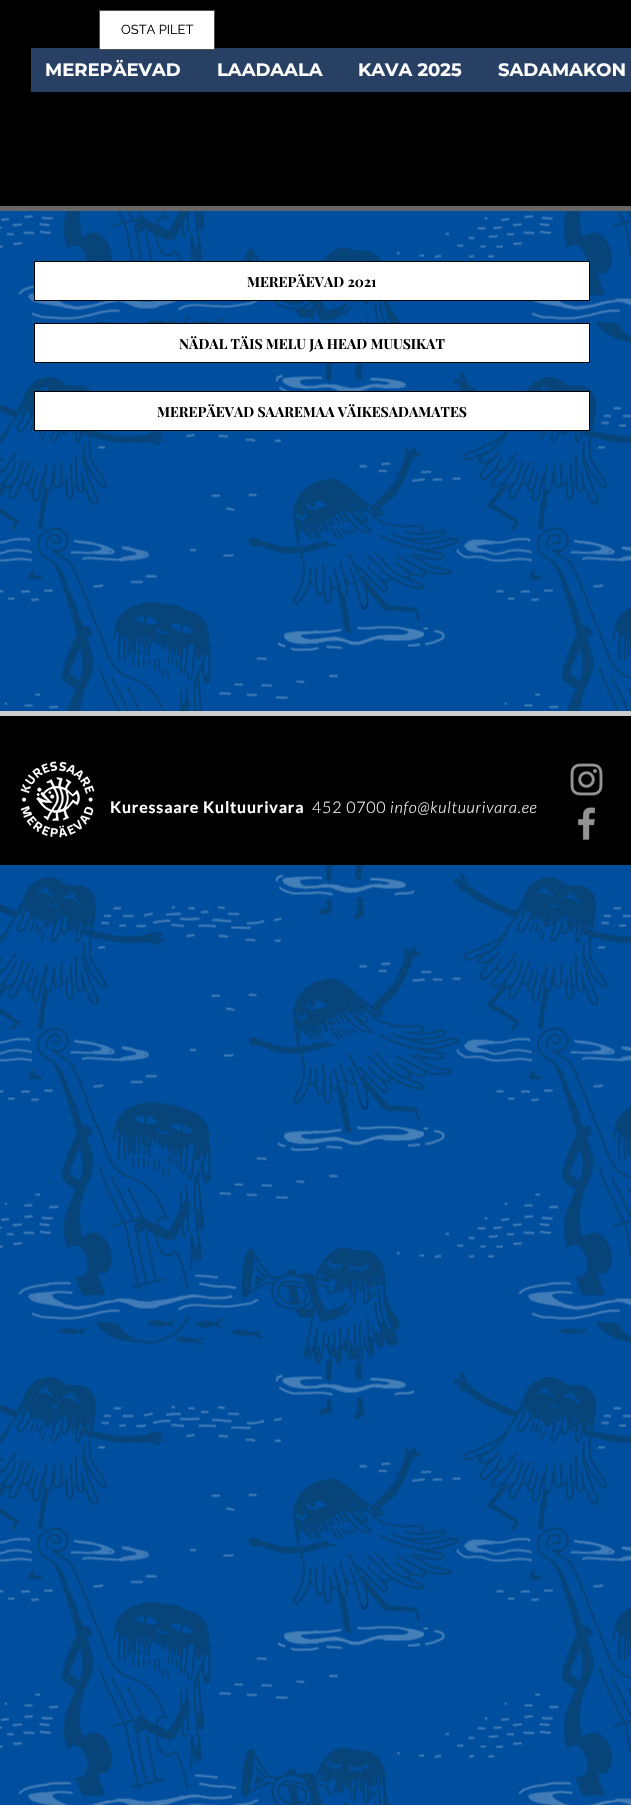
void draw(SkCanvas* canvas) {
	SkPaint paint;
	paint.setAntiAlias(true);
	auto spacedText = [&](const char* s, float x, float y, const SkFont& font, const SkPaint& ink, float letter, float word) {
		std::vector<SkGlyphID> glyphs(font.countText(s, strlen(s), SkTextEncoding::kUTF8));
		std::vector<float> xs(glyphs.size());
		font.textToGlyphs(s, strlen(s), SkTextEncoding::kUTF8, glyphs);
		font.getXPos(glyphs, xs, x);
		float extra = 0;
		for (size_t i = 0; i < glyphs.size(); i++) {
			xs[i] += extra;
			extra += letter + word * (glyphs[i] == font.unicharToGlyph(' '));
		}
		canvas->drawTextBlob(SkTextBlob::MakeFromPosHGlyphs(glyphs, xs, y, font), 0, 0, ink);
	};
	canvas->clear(0xffffffff);
	paint.setColor(0xff000000);
	canvas->drawRect(SkRect::MakeXYWH(0, 0, 631, 206), paint);
	paint.setColor(0xff284064);
	canvas->drawRect(SkRect::MakeXYWH(31, 48, 600, 44), paint);
	paint.setColor(0xffffffff);
	canvas->drawRect(SkRect::MakeXYWH(99.5, 10.5, 115, 39), paint);
	paint.setStroke(true);
	paint.setStrokeWidth(1);
	paint.setColor(0xff525252);
	canvas->drawRect(SkRect::MakeXYWH(99.5, 10.5, 115, 39), paint);
	SkFont f1(fontMgr->matchFamilyStyle("Raleway", SkFontStyle::Normal()), 13);
	f1.setSubpixel(true);
	paint.setStroke(false);
	paint.setColor(0xff000000);
	canvas->drawString("OSTA PILET", 121, 34, f1, paint);
	canvas->drawImageRect(SkImages::DeferredFromEncodedData(SkData::MakeFromFileName("img4.png")), SkRect::MakeXYWH(0, 211, 631, 1594), SkSamplingOptions());
	paint.setColor(0xffffffff);
	canvas->drawRect(SkRect::MakeXYWH(34.5, 261.5, 555, 39), paint);
	paint.setStroke(true);
	paint.setColor(0xff000000);
	canvas->drawRect(SkRect::MakeXYWH(34.5, 261.5, 555, 39), paint);
	SkFont f2(fontMgr->matchFamilyStyle("Playfair Display", SkFontStyle::Bold()), 14);
	f2.setSubpixel(true);
	paint.setStroke(false);
	canvas->drawString("MEREPÄEVAD 2021", 247, 287, f2, paint);
	paint.setColor(0xffffffff);
	canvas->drawRect(SkRect::MakeXYWH(34.5, 323.5, 555, 39), paint);
	paint.setStroke(true);
	paint.setColor(0xff000000);
	canvas->drawRect(SkRect::MakeXYWH(34.5, 323.5, 555, 39), paint);
	paint.setStroke(false);
	canvas->drawString("NÄDAL TÄIS MELU JA HEAD MUUSIKAT", 179, 349, f2, paint);
	paint.setColor(0xffffffff);
	canvas->drawRect(SkRect::MakeXYWH(34.5, 391.5, 555, 39), paint);
	paint.setStroke(true);
	paint.setColor(0xff000000);
	canvas->drawRect(SkRect::MakeXYWH(34.5, 391.5, 555, 39), paint);
	paint.setStroke(false);
	canvas->drawString("MEREPÄEVAD SAAREMAA VÄIKESADAMATES", 157, 417, f2, paint);
	paint.setColor(0xff666666);
	canvas->drawRect(SkRect::MakeXYWH(0, 206, 631, 5), paint);
	SkFont f3(fontMgr->matchFamilyStyle("Montserrat", SkFontStyle::Bold()), 18);
	f3.setSubpixel(true);
	paint.setColor(0xffffffff);
	canvas->drawString("MEREPÄEVAD", 45, 76, f3, paint);
	canvas->drawString("LAADAALA", 217, 76, f3, paint);
	canvas->drawString("KAVA 2025", 358, 76, f3, paint);
	canvas->drawString("SADAMAKON", 498, 76, f3, paint);
	paint.setColor(0xff000000);
	canvas->drawRect(SkRect::MakeXYWH(0, 716, 631, 149), paint);
	paint.setColor(0xffcccccc);
	canvas->drawRect(SkRect::MakeXYWH(0, 711, 631, 5), paint);
	canvas->drawImageRect(SkImages::DeferredFromEncodedData(SkData::MakeFromFileName("img1.png")), SkRect::MakeXYWH(20, 761, 75, 77), SkSamplingOptions());
	SkFont f4(fontMgr->matchFamilyStyle("Lato", SkFontStyle::Bold()), 16);
	f4.setSubpixel(true);
	paint.setColor(0xffffffff);
	spacedText("Kuressaare Kultuurivara", 110, 813, f4, paint, 0.8, 0);
	SkFont f5(fontMgr->matchFamilyStyle("Lato", SkFontStyle(300, SkFontStyle::kNormal_Width, SkFontStyle::kUpright_Slant)), 16);
	f5.setSubpixel(true);
	spacedText("452 0700", 312, 813, f5, paint, 0.8, 0);
	SkFont f6(fontMgr->matchFamilyStyle("Lato", SkFontStyle(300, SkFontStyle::kNormal_Width, SkFontStyle::kItalic_Slant)), 16);
	f6.setSubpixel(true);
	spacedText("info@kultuurivara.ee", 390, 813, f6, paint, 0.8, 0);
	canvas->drawImageRect(SkImages::DeferredFromEncodedData(SkData::MakeFromFileName("img2.png")), SkRect::MakeXYWH(570, 763, 33, 33), SkSamplingOptions());
	canvas->drawImageRect(SkImages::DeferredFromEncodedData(SkData::MakeFromFileName("img3.png")), SkRect::MakeXYWH(577, 807, 19, 33), SkSamplingOptions());
}
